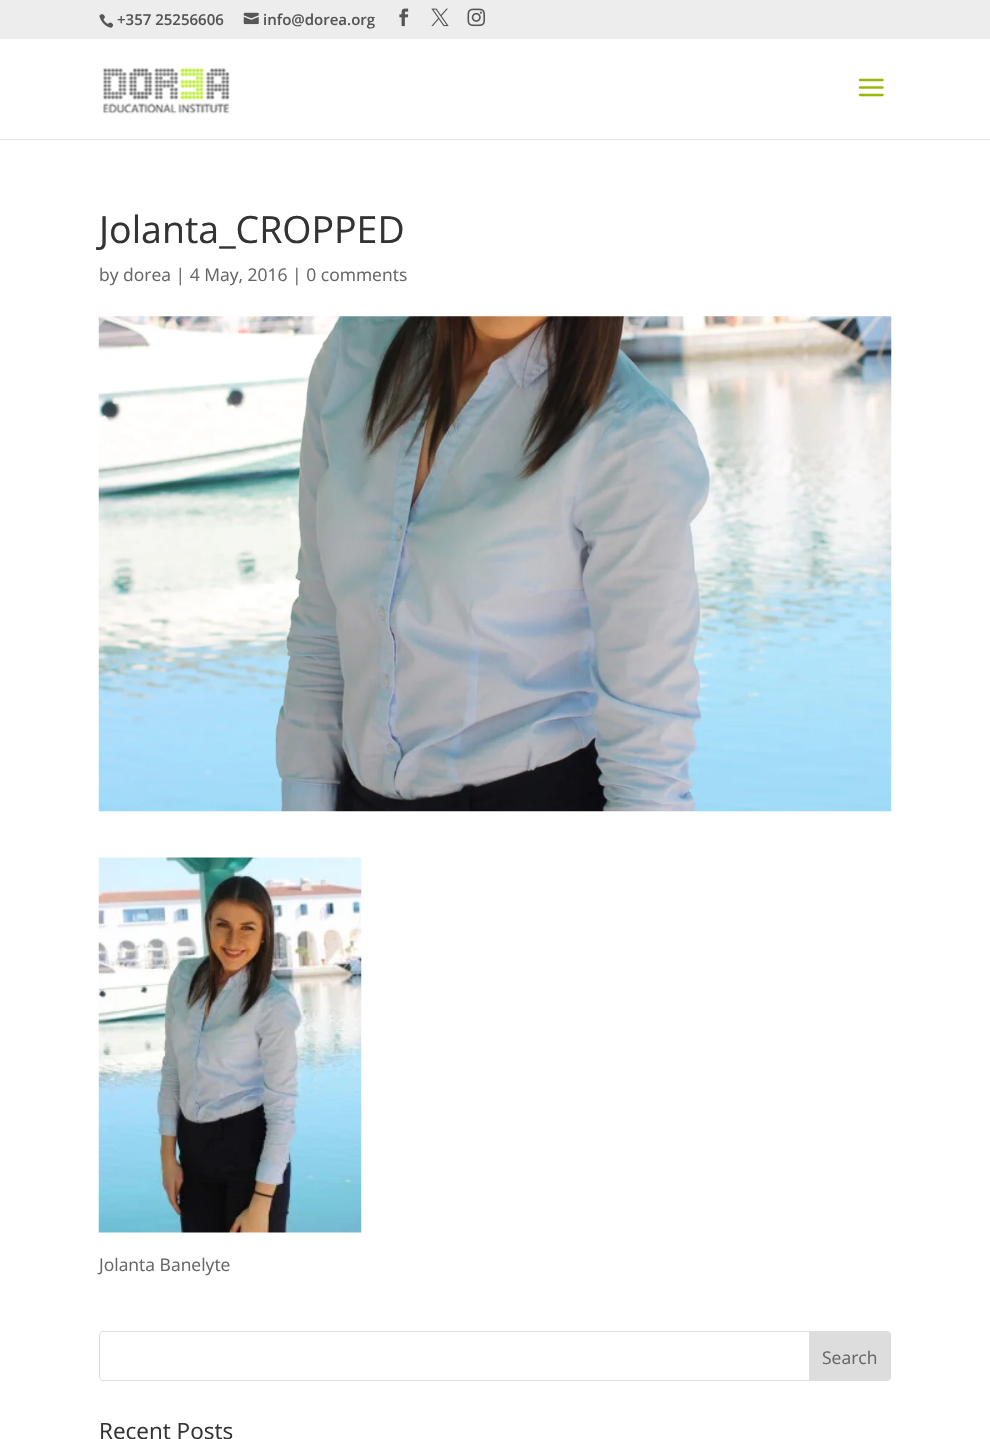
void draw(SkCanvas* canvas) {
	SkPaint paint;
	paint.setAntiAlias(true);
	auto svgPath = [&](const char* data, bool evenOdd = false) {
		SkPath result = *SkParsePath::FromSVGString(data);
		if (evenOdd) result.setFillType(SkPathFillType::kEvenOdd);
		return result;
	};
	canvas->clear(0xffffffff);
	paint.setColor(0xffededed);
	canvas->drawRect(SkRect::MakeXYWH(0, 0, 990, 39), paint);
	canvas->drawImageRect(SkImages::DeferredFromEncodedData(SkData::MakeFromFileName("img1.png")), SkRect::MakeXYWH(99, 14, 15, 14), SkSamplingOptions());
	SkFont f1(fontMgr->matchFamilyStyle("Open Sans", SkFontStyle(600, SkFontStyle::kNormal_Width, SkFontStyle::kUpright_Slant)), 15);
	f1.setSubpixel(true);
	paint.setColor(0xff555555);
	canvas->drawString("+357 25256606", 117, 25, f1, paint);
	canvas->drawImageRect(SkImages::DeferredFromEncodedData(SkData::MakeFromFileName("img2.png")), SkRect::MakeXYWH(243, 12, 16, 13), SkSamplingOptions());
	canvas->drawString("info@dorea.org", 263, 25, f1, paint);
	canvas->drawImageRect(SkImages::DeferredFromEncodedData(SkData::MakeFromFileName("img3.png")), SkRect::MakeXYWH(399, 8, 10, 19), SkSamplingOptions());
	canvas->drawImageRect(SkImages::DeferredFromEncodedData(SkData::MakeFromFileName("img4.png")), SkRect::MakeXYWH(431, 8, 18, 19), SkSamplingOptions());
	canvas->drawImageRect(SkImages::DeferredFromEncodedData(SkData::MakeFromFileName("img5.png")), SkRect::MakeXYWH(467, 8, 18, 19), SkSamplingOptions());
	paint.setColor(0xffe6e6e6);
	canvas->drawRect(SkRect::MakeXYWH(0, 139, 990, 1), paint);
	canvas->drawImageRect(SkImages::DeferredFromEncodedData(SkData::MakeFromFileName("img6.png")), SkRect::MakeXYWH(103, 68, 127, 46), SkSamplingOptions());
	canvas->drawImageRect(SkImages::DeferredFromEncodedData(SkData::MakeFromFileName("img7.png")), SkRect::MakeXYWH(858, 78, 26, 19), SkSamplingOptions());
	SkFont f2(fontMgr->matchFamilyStyle("Open Sans", SkFontStyle::Normal()), 37.5);
	f2.setSubpixel(true);
	paint.setColor(0xff333333);
	canvas->drawString("Jolanta_CROPPED", 99, 243, f2, paint);
	SkFont f3(fontMgr->matchFamilyStyle("Open Sans", SkFontStyle::Normal()), 17.5);
	f3.setSubpixel(true);
	paint.setColor(0xff666666);
	canvas->drawString("by dorea | 4 May, 2016 | 0 comments", 99, 281, f3, paint);
	canvas->drawImageRect(SkImages::DeferredFromEncodedData(SkData::MakeFromFileName("img8.png")), SkRect::MakeXYWH(98, 316, 794, 496), SkSamplingOptions());
	canvas->drawImageRect(SkImages::DeferredFromEncodedData(SkData::MakeFromFileName("img9.png")), SkRect::MakeXYWH(98, 857, 264, 376), SkSamplingOptions());
	canvas->drawString("Jolanta Banelyte", 99, 1271, f3, paint);
	paint.setStroke(true);
	paint.setStrokeWidth(1);
	paint.setColor(0xffdddddd);
	canvas->drawRoundRect(SkRect::MakeXYWH(99.5, 1331.5, 791, 49), 3.5, 3.5, paint);
	paint.setStroke(false);
	canvas->drawPath(svgPath("M809.5 1331.5H887C889 1331.5 890.5 1333 890.5 1335V1377C890.5 1379 889 1380.5 887 1380.5H809.5Z"), paint);
	paint.setStroke(true);
	canvas->drawPath(svgPath("M809.5 1331.5H887C889 1331.5 890.5 1333 890.5 1335V1377C890.5 1379 889 1380.5 887 1380.5H809.5Z"), paint);
	paint.setStroke(false);
	paint.setColor(0xff666666);
	canvas->drawString("Search", 822, 1364, f3, paint);
	SkFont f4(fontMgr->matchFamilyStyle("Open Sans", SkFontStyle::Normal()), 22.5);
	f4.setSubpixel(true);
	paint.setColor(0xff333333);
	canvas->drawString("Recent Posts", 99, 1439, f4, paint);
}
